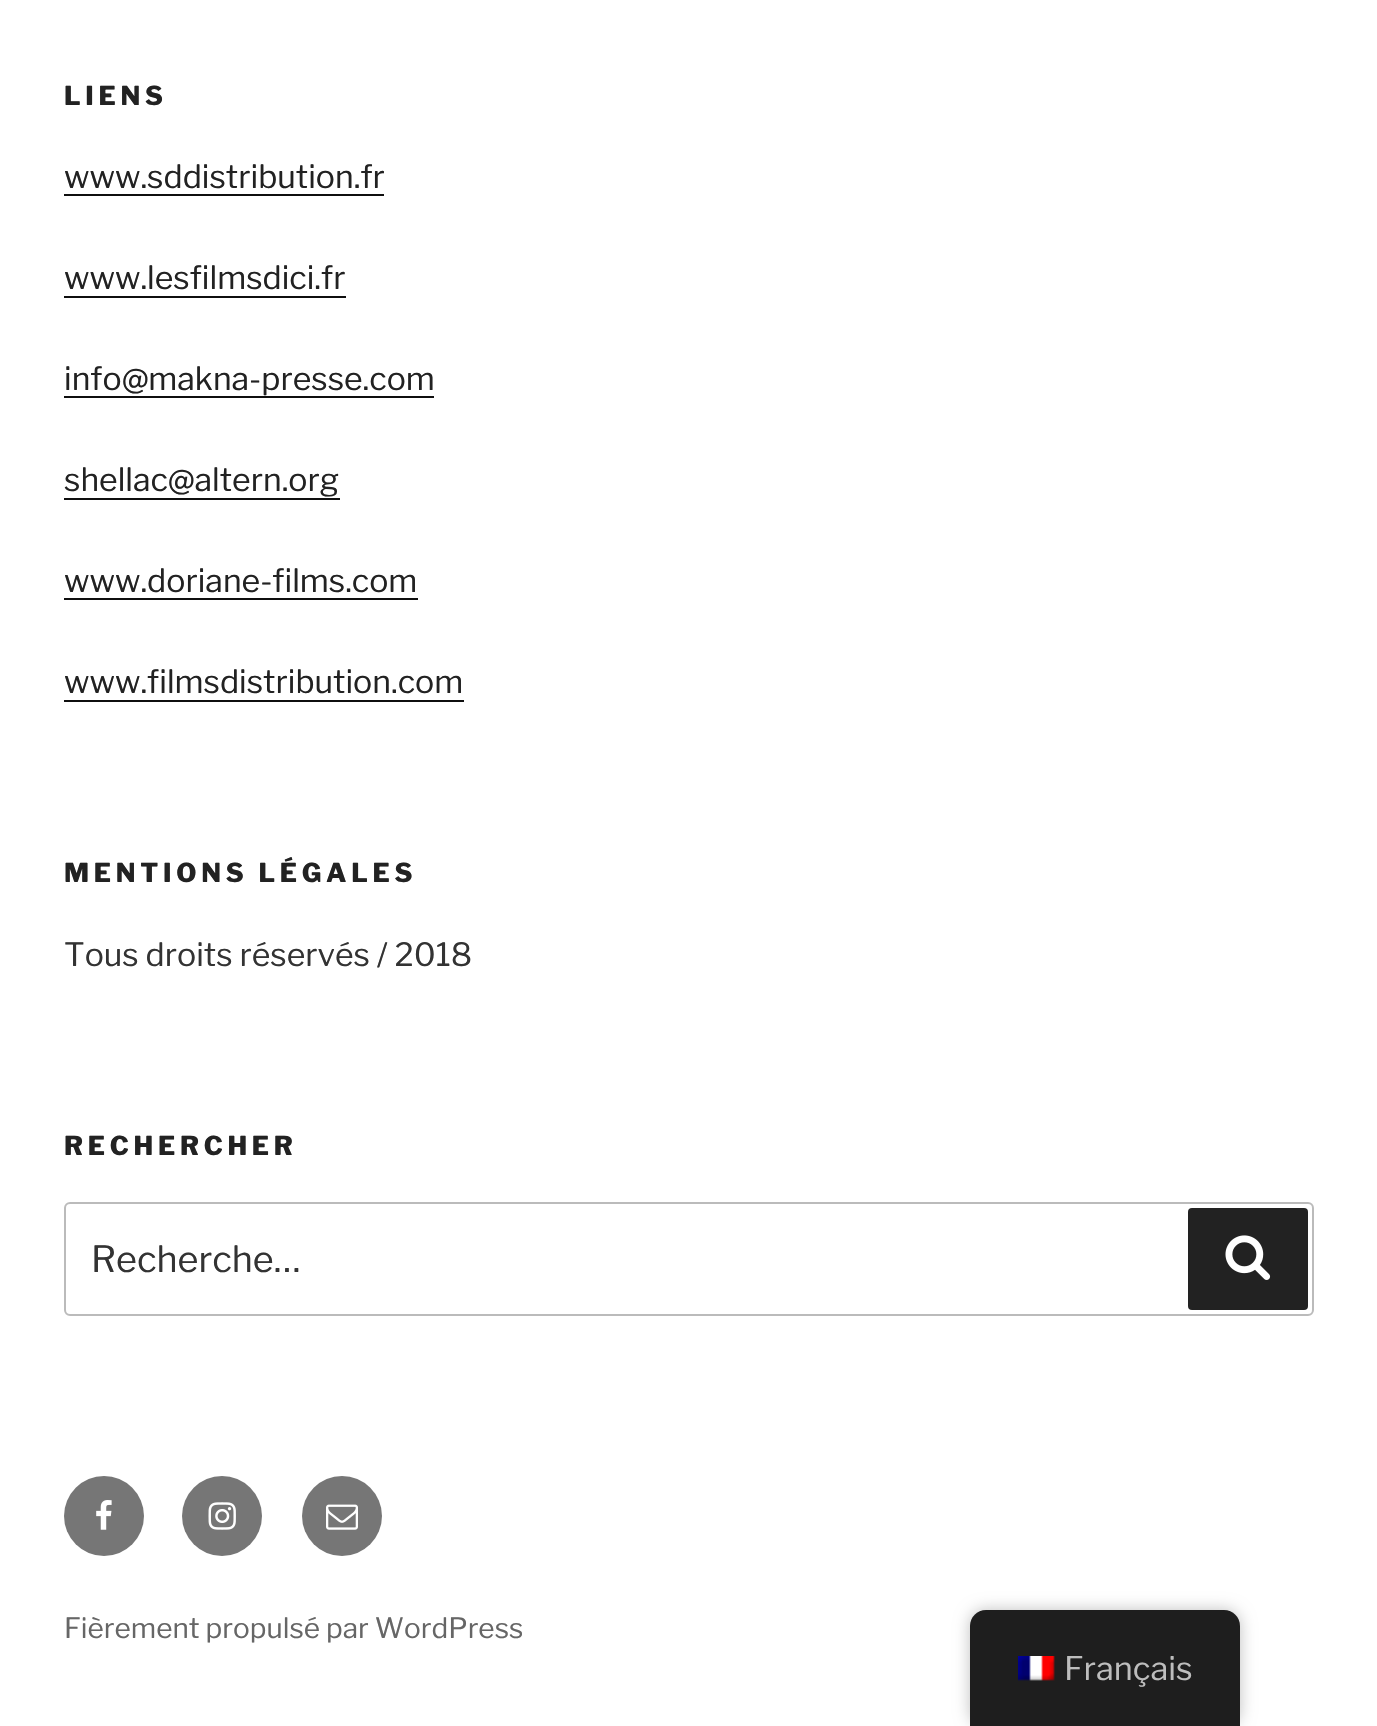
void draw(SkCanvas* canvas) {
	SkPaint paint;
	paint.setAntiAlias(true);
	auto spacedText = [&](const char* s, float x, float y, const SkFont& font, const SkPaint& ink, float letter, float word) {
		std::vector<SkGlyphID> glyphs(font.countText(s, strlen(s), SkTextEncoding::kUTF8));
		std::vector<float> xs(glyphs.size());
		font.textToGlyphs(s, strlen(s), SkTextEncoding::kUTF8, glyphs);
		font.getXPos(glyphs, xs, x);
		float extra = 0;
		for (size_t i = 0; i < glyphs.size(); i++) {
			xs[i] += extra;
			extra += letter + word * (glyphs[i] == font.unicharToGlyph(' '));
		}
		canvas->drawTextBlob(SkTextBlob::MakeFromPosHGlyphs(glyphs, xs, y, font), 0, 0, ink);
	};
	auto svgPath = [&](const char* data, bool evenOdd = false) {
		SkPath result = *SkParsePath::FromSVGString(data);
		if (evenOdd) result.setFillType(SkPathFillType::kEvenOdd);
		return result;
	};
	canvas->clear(0xffffffff);
	SkFont f1(fontMgr->matchFamilyStyle("Libre Franklin", SkFontStyle(800, SkFontStyle::kNormal_Width, SkFontStyle::kUpright_Slant)), 26);
	f1.setSubpixel(true);
	paint.setColor(0xff222222);
	spacedText("LIENS", 64, 105, f1, paint, 4.75, 0);
	SkFont f2(fontMgr->matchFamilyStyle("Libre Franklin", SkFontStyle::Normal()), 32);
	f2.setSubpixel(true);
	canvas->drawString("www.sddistribution.fr", 64, 188, f2, paint);
	paint.setColor(0xff0f0f0f);
	canvas->drawRect(SkRect::MakeXYWH(64, 194, 320, 2), paint);
	paint.setColor(0xff222222);
	canvas->drawString("www.lesfilmsdici.fr", 64, 289, f2, paint);
	paint.setColor(0xff0f0f0f);
	canvas->drawRect(SkRect::MakeXYWH(64, 296, 282, 2), paint);
	paint.setColor(0xff222222);
	canvas->drawString("info@makna-presse.com", 64, 390, f2, paint);
	paint.setColor(0xff0f0f0f);
	canvas->drawRect(SkRect::MakeXYWH(64, 396, 370, 2), paint);
	paint.setColor(0xff222222);
	canvas->drawString("shellac@altern.org", 64, 491, f2, paint);
	paint.setColor(0xff0f0f0f);
	canvas->drawRect(SkRect::MakeXYWH(64, 498, 276, 2), paint);
	paint.setColor(0xff222222);
	canvas->drawString("www.doriane-films.com", 64, 592, f2, paint);
	paint.setColor(0xff0f0f0f);
	canvas->drawRect(SkRect::MakeXYWH(64, 598, 354, 2), paint);
	paint.setColor(0xff222222);
	canvas->drawString("www.filmsdistribution.com", 64, 693, f2, paint);
	paint.setColor(0xff0f0f0f);
	canvas->drawRect(SkRect::MakeXYWH(64, 700, 400, 2), paint);
	paint.setColor(0xff222222);
	spacedText("MENTIONS LÉGALES", 64, 882, f1, paint, 4.75, 0);
	paint.setColor(0xff333333);
	canvas->drawString("Tous droits réservés / 2018", 64, 966, f2, paint);
	paint.setColor(0xff222222);
	spacedText("RECHERCHER", 64, 1155, f1, paint, 4.75, 0);
	paint.setStroke(true);
	paint.setStrokeWidth(2);
	paint.setColor(0xffbbbbbb);
	canvas->drawRoundRect(SkRect::MakeXYWH(65, 1203, 1248, 112), 5, 5, paint);
	SkFont f3(fontMgr->matchFamilyStyle("Libre Franklin", SkFontStyle::Normal()), 36);
	f3.setSubpixel(true);
	paint.setStroke(false);
	paint.setColor(0xff333333);
	canvas->drawString("Recherche…", 91, 1272, f3, paint);
	paint.setColor(0xff222222);
	canvas->drawRoundRect(SkRect::MakeXYWH(1188, 1208, 120, 102), 4, 4, paint);
	canvas->drawImageRect(SkImages::DeferredFromEncodedData(SkData::MakeFromFileName("img1.png")), SkRect::MakeXYWH(1225, 1235, 46, 45), SkSamplingOptions());
	paint.setColor(0xff767676);
	canvas->drawCircle(104, 1516, 40, paint);
	canvas->drawImageRect(SkImages::DeferredFromEncodedData(SkData::MakeFromFileName("img2.png")), SkRect::MakeXYWH(96, 1500, 16, 30), SkSamplingOptions());
	canvas->drawCircle(222, 1516, 40, paint);
	canvas->drawImageRect(SkImages::DeferredFromEncodedData(SkData::MakeFromFileName("img3.png")), SkRect::MakeXYWH(208, 1502, 28, 28), SkSamplingOptions());
	canvas->drawCircle(342, 1516, 40, paint);
	canvas->drawImageRect(SkImages::DeferredFromEncodedData(SkData::MakeFromFileName("img4.png")), SkRect::MakeXYWH(326, 1504, 32, 26), SkSamplingOptions());
	SkFont f4(fontMgr->matchFamilyStyle("Libre Franklin", SkFontStyle::Normal()), 28);
	f4.setSubpixel(true);
	paint.setColor(0xff666666);
	canvas->drawString("Fièrement propulsé par WordPress", 64, 1638, f4, paint);
	paint.setColor(0x40000000);
	paint.setMaskFilter(SkMaskFilter::MakeBlur(kNormal_SkBlurStyle, 8));
	canvas->drawRoundRect(SkRect::MakeXYWH(970, 1610, 270, 116), 16, 16, paint);
	paint.setMaskFilter(nullptr);
	paint.setColor(0xff1e1e1e);
	canvas->drawPath(svgPath("M986 1610H1224C1233 1610 1240 1617 1240 1626V1726H970V1626C970 1617 977 1610 986 1610Z"), paint);
	canvas->drawImageRect(SkImages::DeferredFromEncodedData(SkData::MakeFromFileName("img5.png")), SkRect::MakeXYWH(1018, 1656, 37, 25), SkSamplingOptions());
	SkFont f5(fontMgr->matchFamilyStyle("Libre Franklin", SkFontStyle::Normal()), 32.5);
	f5.setSubpixel(true);
	paint.setColor(0xffbdbdbd);
	canvas->drawString("Français", 1064, 1680, f5, paint);
}
